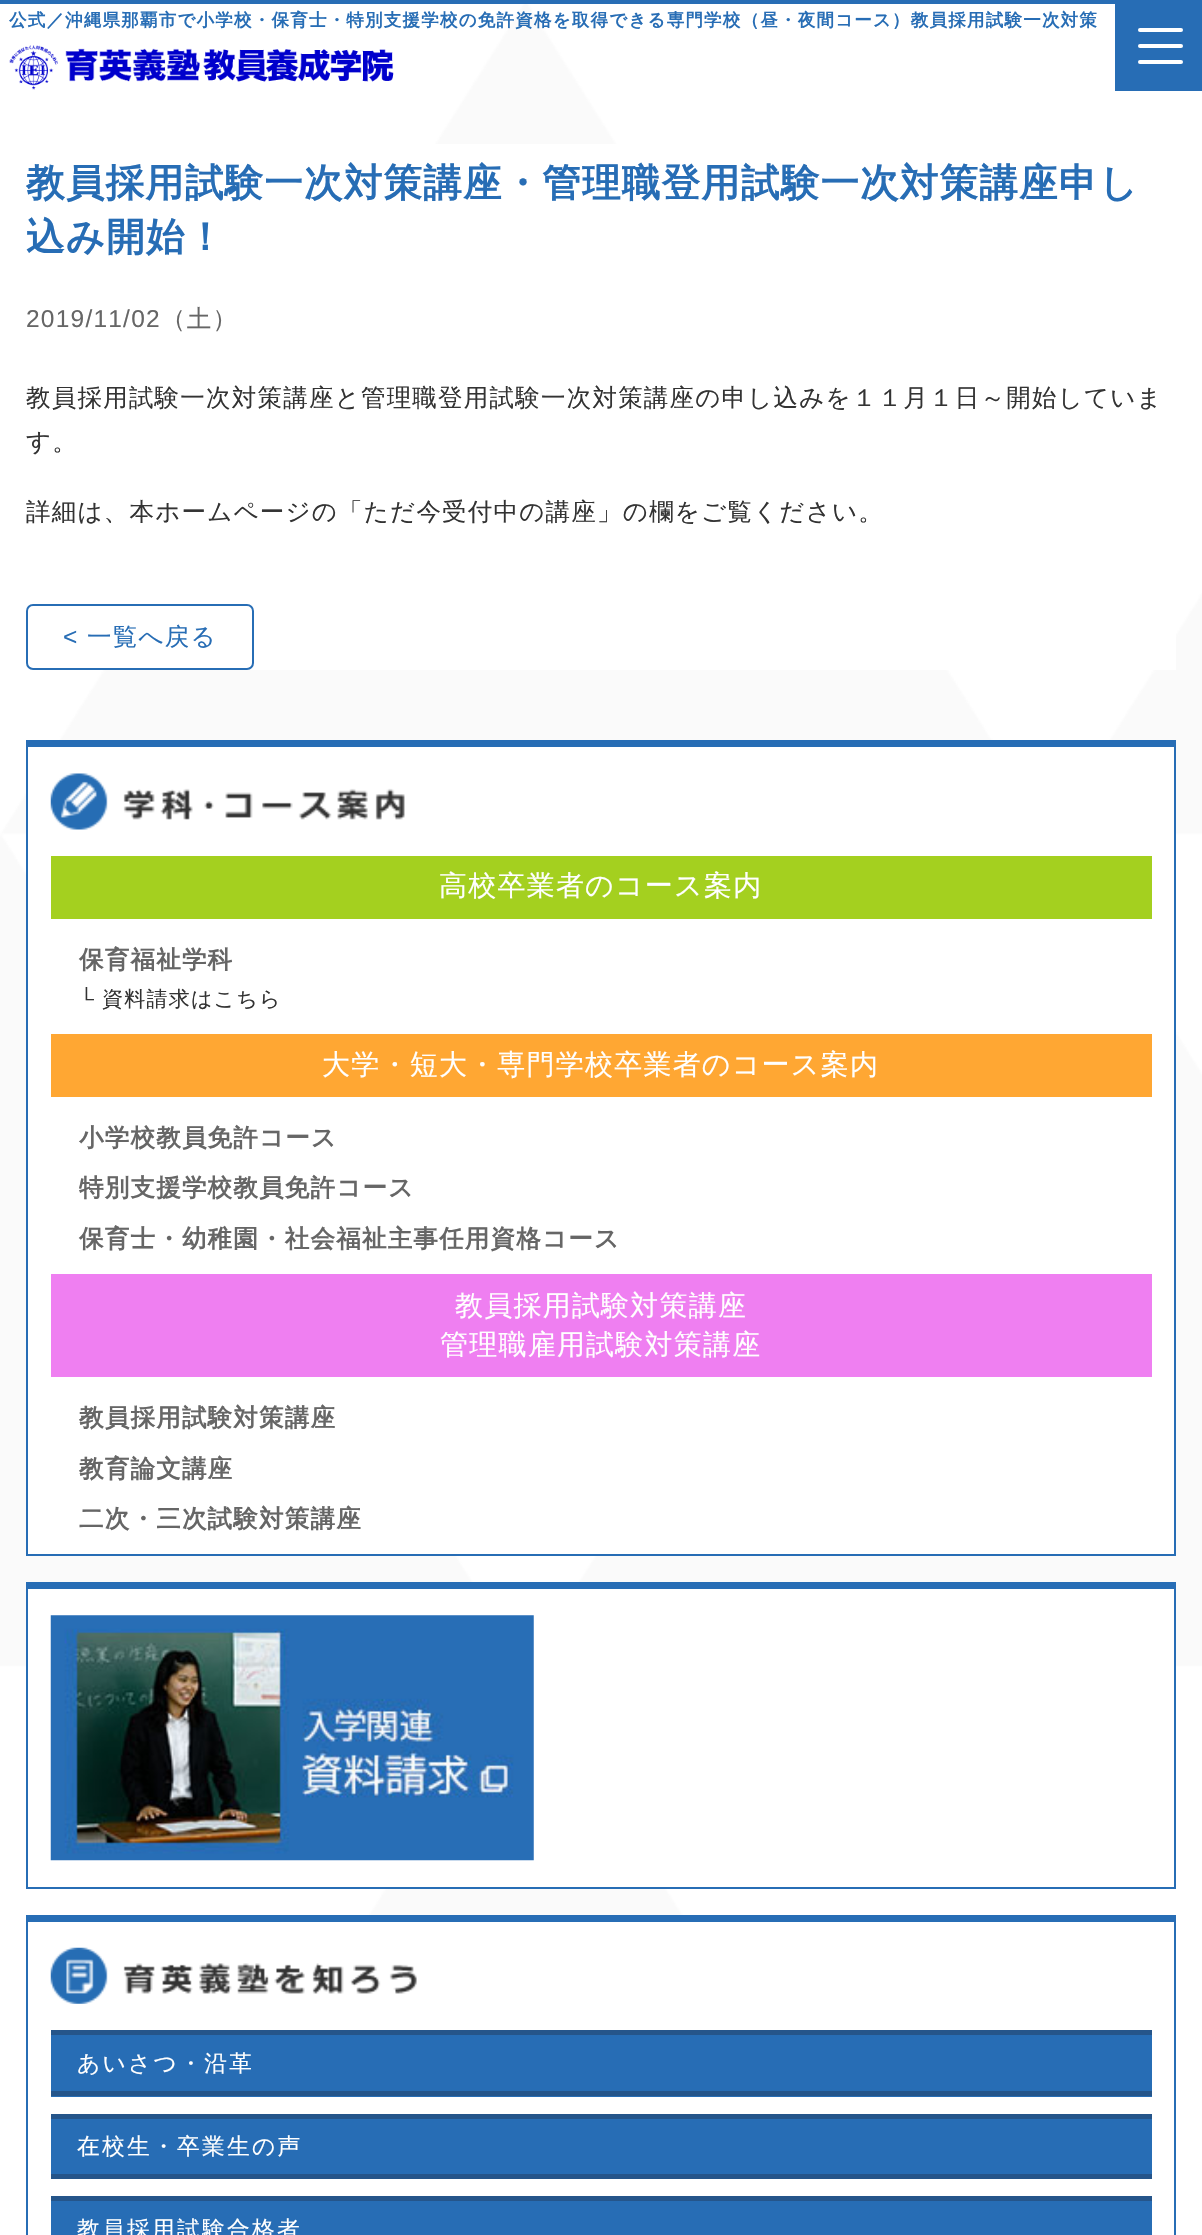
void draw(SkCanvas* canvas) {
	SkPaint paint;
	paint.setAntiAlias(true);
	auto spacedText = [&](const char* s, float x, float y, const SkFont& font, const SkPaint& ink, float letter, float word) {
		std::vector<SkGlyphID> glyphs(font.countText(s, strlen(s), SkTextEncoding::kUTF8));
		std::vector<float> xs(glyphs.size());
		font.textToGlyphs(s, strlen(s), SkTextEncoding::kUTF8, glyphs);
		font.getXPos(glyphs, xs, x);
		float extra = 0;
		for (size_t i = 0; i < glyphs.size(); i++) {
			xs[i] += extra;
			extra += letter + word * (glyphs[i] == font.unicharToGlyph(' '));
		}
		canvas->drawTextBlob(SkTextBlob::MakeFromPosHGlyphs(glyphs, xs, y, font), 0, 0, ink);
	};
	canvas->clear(0xffffffff);
	canvas->drawImageRect(SkImages::DeferredFromEncodedData(SkData::MakeFromFileName("img1.png")), SkRect::MakeXYWH(0, 4, 1202, 1911), SkSamplingOptions());
	paint.setColor(0xff276db5);
	canvas->drawRect(SkRect::MakeXYWH(0, 0, 1115, 4), paint);
	SkFont f1(fontMgr->matchFamilyStyle("WenQuanYi Zen Hei", SkFontStyle::Bold()), 17.5);
	f1.setSubpixel(true);
	spacedText("公式／沖縄県那覇市で小学校・保育士・特別支援学校の免許資格を取得できる専門学校（昼・夜間コース）教員採用試験一次対策", 9, 26, f1, paint, 1.22, 0);
	canvas->drawImageRect(SkImages::DeferredFromEncodedData(SkData::MakeFromFileName("img2.png")), SkRect::MakeXYWH(9, 45, 385, 45), SkSamplingOptions());
	canvas->drawRect(SkRect::MakeXYWH(1115, 0, 87, 91), paint);
	paint.setColor(0xffffffff);
	canvas->drawRoundRect(SkRect::MakeXYWH(1138, 44, 45, 4), 2, 2, paint);
	canvas->drawRoundRect(SkRect::MakeXYWH(1138, 28, 45, 4), 2, 2, paint);
	canvas->drawRoundRect(SkRect::MakeXYWH(1138, 60, 45, 4), 2, 2, paint);
	canvas->drawRect(SkRect::MakeXYWH(104, 144, 1072, 526), paint);
	SkFont f2(fontMgr->matchFamilyStyle("WenQuanYi Zen Hei", SkFontStyle::Bold()), 38.5);
	f2.setSubpixel(true);
	paint.setColor(0xff276db5);
	spacedText("教員採用試験一次対策講座・管理職登用試験一次対策講座申し", 26, 196, f2, paint, 1.22, 0);
	spacedText("込み開始！", 26, 250, f2, paint, 1.22, 0);
	SkFont f3(fontMgr->matchFamilyStyle("Liberation Sans", SkFontStyle::Normal()), 24.5);
	f3.setSubpixel(true);
	paint.setColor(0xff666666);
	spacedText("2019/11/02", 26, 327, f3, paint, 1.22, 0);
	SkFont f4(fontMgr->matchFamilyStyle("WenQuanYi Zen Hei", SkFontStyle(500, SkFontStyle::kNormal_Width, SkFontStyle::kUpright_Slant)), 24.5);
	f4.setSubpixel(true);
	spacedText("（土）", 161, 327, f4, paint, 1.22, 0);
	paint.setColor(0xff333333);
	spacedText("教員採用試験一次対策講座と管理職登用試験一次対策講座の申し込みを１１月１日～開始していま", 26, 406, f4, paint, 1.22, 0);
	spacedText("す。", 26, 450, f4, paint, 1.22, 0);
	spacedText("詳細は、本ホームページの「ただ今受付中の講座」の欄をご覧ください。", 26, 520, f4, paint, 1.22, 0);
	paint.setStroke(true);
	paint.setStrokeWidth(2);
	paint.setColor(0xff276db5);
	canvas->drawRoundRect(SkRect::MakeXYWH(27, 605, 226, 64), 6, 6, paint);
	paint.setStroke(false);
	spacedText("<", 63, 645, f3, paint, 1.22, 0);
	spacedText("一覧へ戻る", 87, 645, f4, paint, 1.22, 0);
	paint.setColor(0xffffffff);
	canvas->drawRect(SkRect::MakeXYWH(28, 747, 1146, 807), paint);
	paint.setColor(0xff276db5);
	canvas->drawRect(SkRect::MakeXYWH(26, 740, 1150, 7), paint);
	canvas->drawRect(SkRect::MakeXYWH(1174, 740, 2, 816), paint);
	canvas->drawRect(SkRect::MakeXYWH(26, 1554, 1150, 2), paint);
	canvas->drawRect(SkRect::MakeXYWH(26, 740, 2, 816), paint);
	canvas->drawImageRect(SkImages::DeferredFromEncodedData(SkData::MakeFromFileName("img3.png")), SkRect::MakeXYWH(50, 773, 355, 57), SkSamplingOptions());
	paint.setColor(0xffa4d01f);
	canvas->drawRect(SkRect::MakeXYWH(51, 856, 1101, 63), paint);
	SkFont f5(fontMgr->matchFamilyStyle("WenQuanYi Zen Hei", SkFontStyle(500, SkFontStyle::kNormal_Width, SkFontStyle::kUpright_Slant)), 28);
	f5.setSubpixel(true);
	paint.setColor(0xffffffff);
	spacedText("高校卒業者のコース案内", 439, 895, f5, paint, 1.22, 0);
	SkFont f6(fontMgr->matchFamilyStyle("WenQuanYi Zen Hei", SkFontStyle::Bold()), 24.5);
	f6.setSubpixel(true);
	paint.setColor(0xff666666);
	spacedText("保育福祉学科", 79, 968, f6, paint, 1.22, 0);
	SkFont f7(fontMgr->matchFamilyStyle("Liberation Sans", SkFontStyle::Normal()), 21);
	f7.setSubpixel(true);
	paint.setColor(0xff333333);
	spacedText("└", 79, 1006, f7, paint, 1.22, 0);
	SkFont f8(fontMgr->matchFamilyStyle("WenQuanYi Zen Hei", SkFontStyle(500, SkFontStyle::kNormal_Width, SkFontStyle::kUpright_Slant)), 21);
	f8.setSubpixel(true);
	spacedText("資料請求はこちら", 102, 1006, f8, paint, 1.22, 0);
	paint.setColor(0xffffa733);
	canvas->drawRect(SkRect::MakeXYWH(51, 1034, 1101, 63), paint);
	paint.setColor(0xffffffff);
	spacedText("大学・短大・専門学校卒業者のコース案内", 322, 1074, f5, paint, 1.22, 0);
	paint.setColor(0xff666666);
	spacedText("小学校教員免許コース", 79, 1146, f6, paint, 1.22, 0);
	spacedText("特別支援学校教員免許コース", 79, 1196, f6, paint, 1.22, 0);
	spacedText("保育士・幼稚園・社会福祉主事任用資格コース", 79, 1247, f6, paint, 1.22, 0);
	paint.setColor(0xffef7ff1);
	canvas->drawRect(SkRect::MakeXYWH(51, 1274, 1101, 103), paint);
	paint.setColor(0xffffffff);
	spacedText("教員採用試験対策講座", 455, 1315, f5, paint, 1.22, 0);
	spacedText("管理職雇用試験対策講座", 440, 1354, f5, paint, 1.22, 0);
	paint.setColor(0xff666666);
	spacedText("教員採用試験対策講座", 79, 1426, f6, paint, 1.22, 0);
	spacedText("教育論文講座", 79, 1477, f6, paint, 1.22, 0);
	spacedText("二次・三次試験対策講座", 79, 1527, f6, paint, 1.22, 0);
	paint.setColor(0xffffffff);
	canvas->drawRect(SkRect::MakeXYWH(28, 1589, 1146, 298), paint);
	paint.setColor(0xff276db5);
	canvas->drawRect(SkRect::MakeXYWH(26, 1582, 1150, 7), paint);
	canvas->drawRect(SkRect::MakeXYWH(1174, 1582, 2, 306), paint);
	canvas->drawRect(SkRect::MakeXYWH(26, 1887, 1150, 2), paint);
	canvas->drawRect(SkRect::MakeXYWH(26, 1582, 2, 306), paint);
	canvas->drawImageRect(SkImages::DeferredFromEncodedData(SkData::MakeFromFileName("img4.png")), SkRect::MakeXYWH(50, 1615, 484, 246), SkSamplingOptions());
	canvas->drawRect(SkRect::MakeXYWH(26, 1915, 1150, 7), paint);
	canvas->drawRect(SkRect::MakeXYWH(1174, 1915, 2, 320), paint);
	canvas->drawRect(SkRect::MakeXYWH(26, 1915, 2, 320), paint);
	canvas->drawImageRect(SkImages::DeferredFromEncodedData(SkData::MakeFromFileName("img5.png")), SkRect::MakeXYWH(50, 1947, 367, 57), SkSamplingOptions());
	canvas->drawRect(SkRect::MakeXYWH(51, 2035, 1101, 62), paint);
	paint.setColor(0xff25558a);
	canvas->drawRect(SkRect::MakeXYWH(51, 2030, 1101, 5), paint);
	canvas->drawRect(SkRect::MakeXYWH(51, 2091, 1101, 5), paint);
	SkFont f9(fontMgr->matchFamilyStyle("WenQuanYi Zen Hei", SkFontStyle(500, SkFontStyle::kNormal_Width, SkFontStyle::kUpright_Slant)), 22.75);
	f9.setSubpixel(true);
	paint.setColor(0xffffffff);
	spacedText("あいさつ・沿革", 77, 2071, f9, paint, 2.25, 0);
	paint.setColor(0xff276db5);
	canvas->drawRect(SkRect::MakeXYWH(51, 2119, 1101, 55), paint);
	paint.setColor(0xff25558a);
	canvas->drawRect(SkRect::MakeXYWH(51, 2114, 1101, 5), paint);
	canvas->drawRect(SkRect::MakeXYWH(51, 2174, 1101, 5), paint);
	paint.setColor(0xffffffff);
	spacedText("在校生・卒業生の声", 77, 2154, f9, paint, 2.25, 0);
	paint.setColor(0xff276db5);
	canvas->drawRect(SkRect::MakeXYWH(51, 2201, 1101, 34), paint);
	paint.setColor(0xff25558a);
	canvas->drawRect(SkRect::MakeXYWH(51, 2196, 1101, 5), paint);
	paint.setColor(0xffffffff);
	spacedText("教員採用試験合格者", 77, 2237, f9, paint, 2.25, 0);
}
